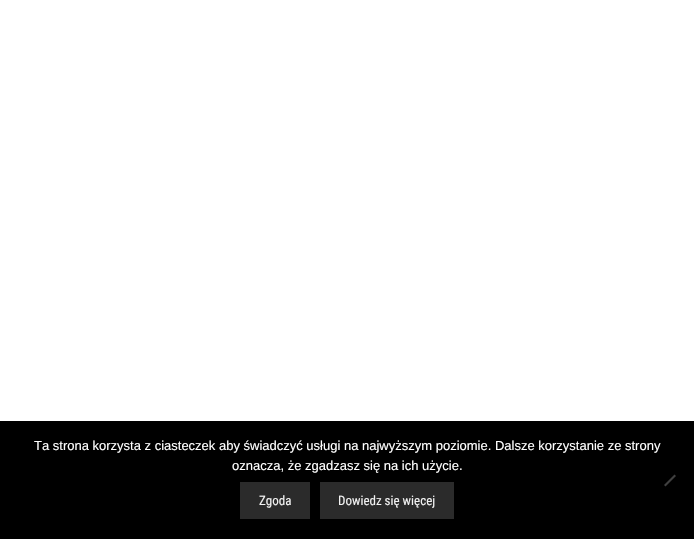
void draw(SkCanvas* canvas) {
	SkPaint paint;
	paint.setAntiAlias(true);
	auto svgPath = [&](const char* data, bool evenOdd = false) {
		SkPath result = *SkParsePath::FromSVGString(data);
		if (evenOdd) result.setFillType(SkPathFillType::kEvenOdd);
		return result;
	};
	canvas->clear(0xffffffff);
	paint.setColor(0xff000000);
	canvas->drawRect(SkRect::MakeXYWH(0, 421, 694, 118), paint);
	SkFont f1(fontMgr->matchFamilyStyle("Liberation Sans", SkFontStyle::Normal()), 13);
	f1.setSubpixel(true);
	paint.setColor(0xffffffff);
	canvas->drawString("Ta strona korzysta z ciasteczek aby świadczyć usługi na najwyższym poziomie. Dalsze korzystanie ze strony", 34, 450, f1, paint);
	canvas->drawString("oznacza, że zgadzasz się na ich użycie.", 232, 470, f1, paint);
	paint.setColor(0xff404040);
	canvas->drawPath(svgPath("M674.5 474.5L676 476L665.5 486.5L664 485Z"), paint);
	paint.setColor(0xff2b2b2b);
	canvas->drawRect(SkRect::MakeXYWH(240, 482, 70, 37), paint);
	SkFont f2(fontMgr->matchFamilyStyle("Roboto Condensed", SkFontStyle::Normal()), 13);
	f2.setSubpixel(true);
	paint.setColor(0xfff2f2f2);
	canvas->drawString("Zgoda", 259, 505, f2, paint);
	paint.setColor(0xff2b2b2b);
	canvas->drawRect(SkRect::MakeXYWH(320, 482, 134, 37), paint);
	paint.setColor(0xfff2f2f2);
	canvas->drawString("Dowiedz się więcej", 338, 505, f2, paint);
}
